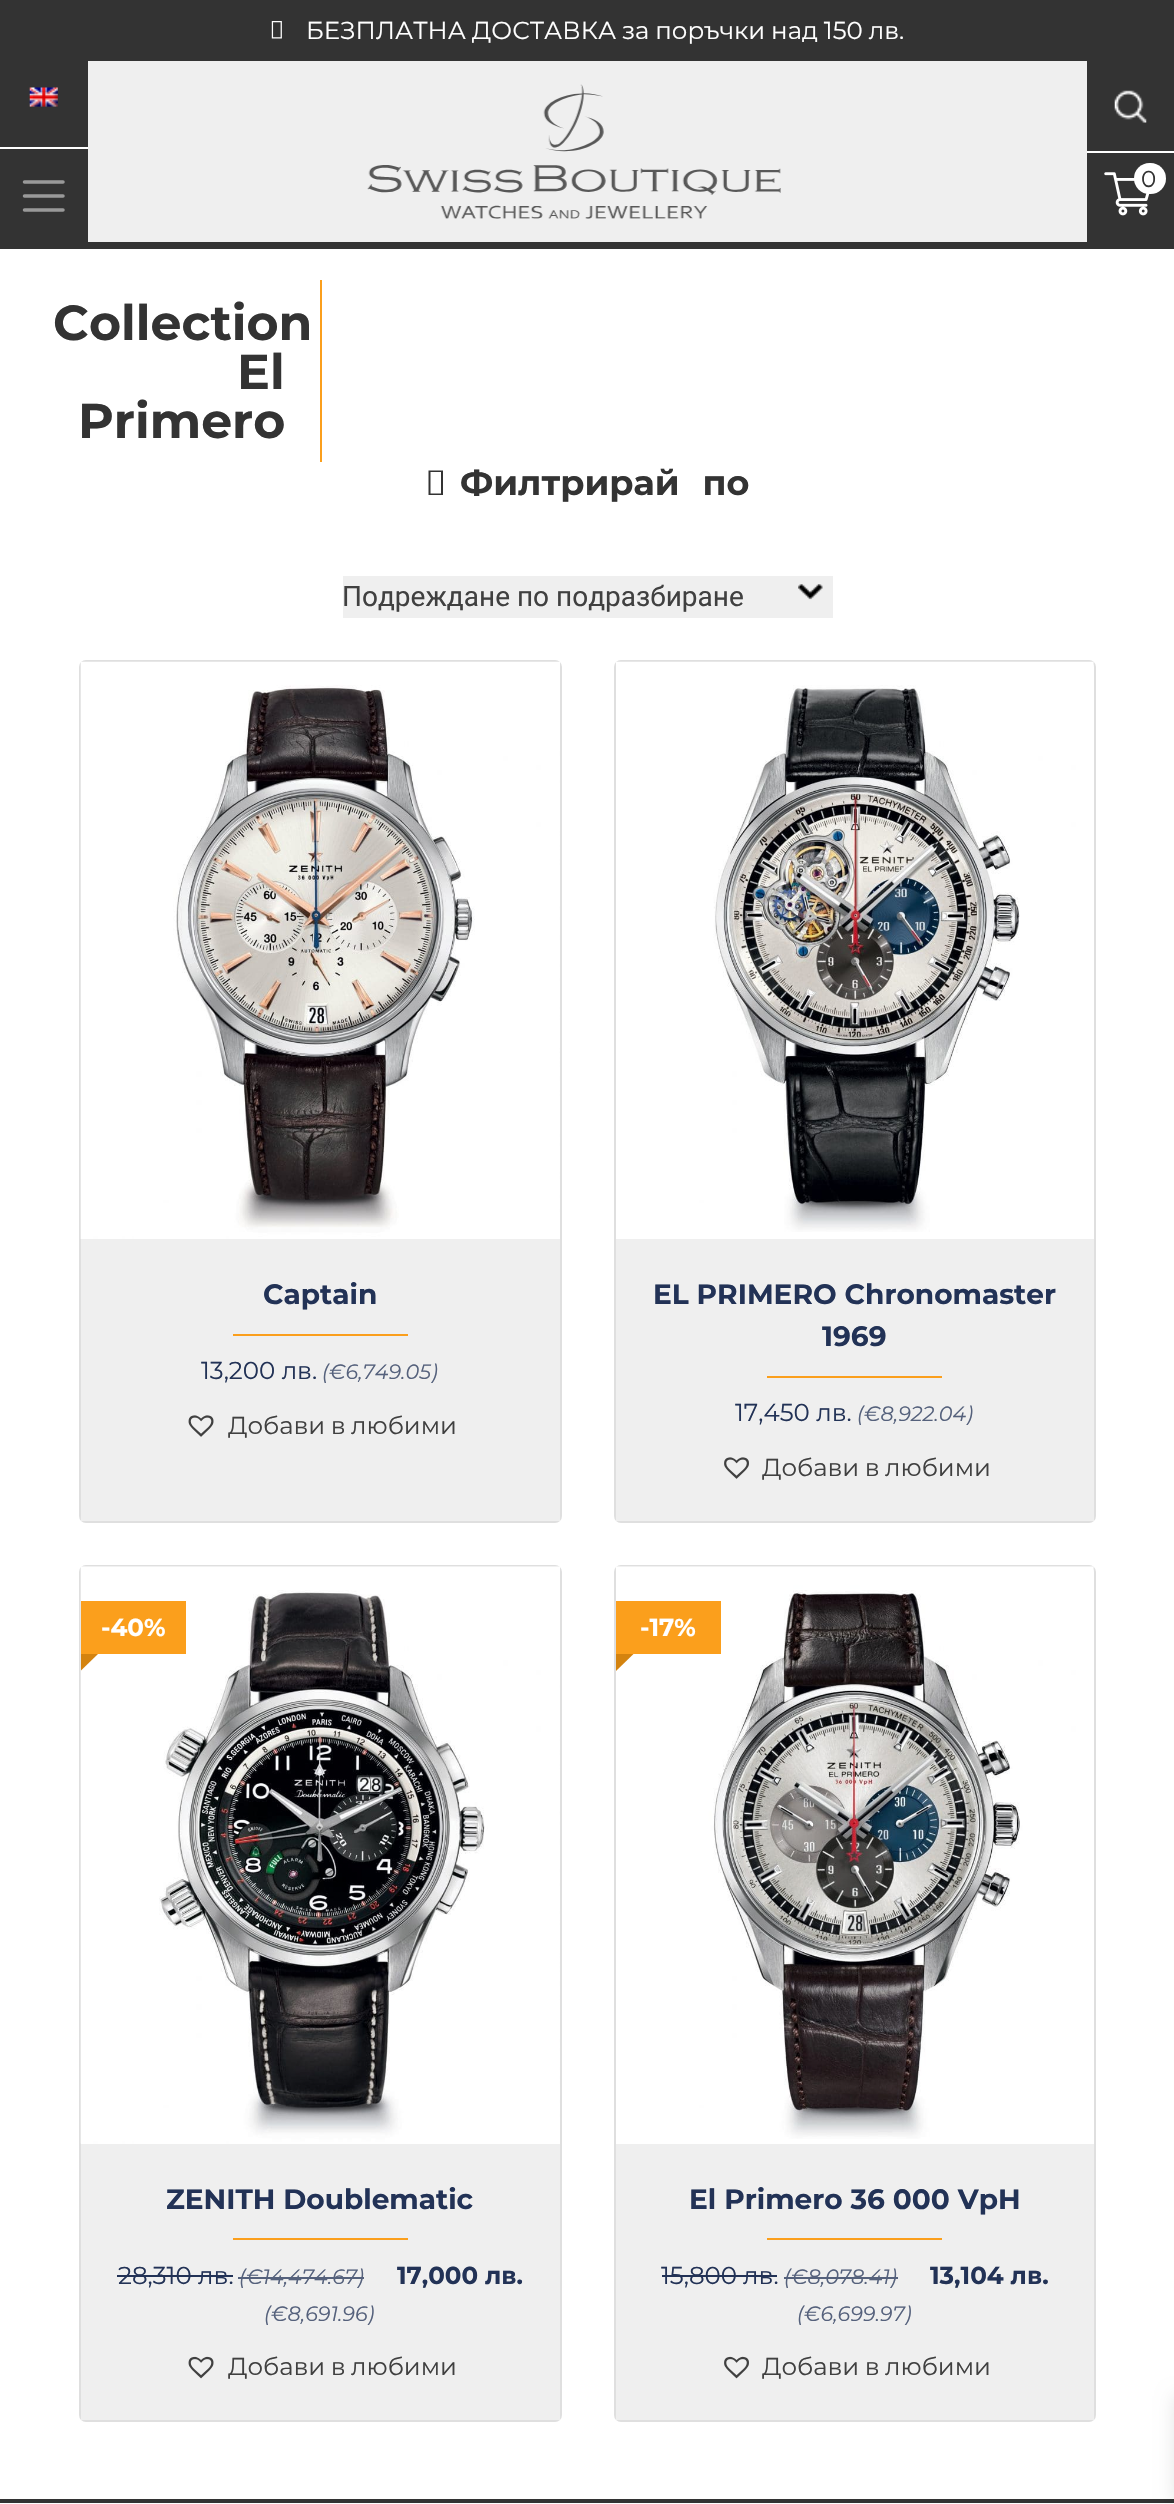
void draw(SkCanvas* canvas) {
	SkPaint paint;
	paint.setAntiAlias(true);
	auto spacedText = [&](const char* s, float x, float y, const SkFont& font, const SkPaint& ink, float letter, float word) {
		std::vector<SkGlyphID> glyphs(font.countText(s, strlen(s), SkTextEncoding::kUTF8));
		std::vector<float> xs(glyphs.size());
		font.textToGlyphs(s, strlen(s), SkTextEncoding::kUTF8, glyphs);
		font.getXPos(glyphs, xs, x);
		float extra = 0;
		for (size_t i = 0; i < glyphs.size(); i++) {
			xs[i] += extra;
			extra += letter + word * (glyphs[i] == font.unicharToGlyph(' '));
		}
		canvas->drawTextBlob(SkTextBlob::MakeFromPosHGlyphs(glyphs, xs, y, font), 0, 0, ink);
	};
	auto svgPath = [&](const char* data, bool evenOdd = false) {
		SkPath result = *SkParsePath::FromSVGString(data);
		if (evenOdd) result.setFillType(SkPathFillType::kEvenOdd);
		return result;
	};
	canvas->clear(0xffffffff);
	paint.setColor(0xffefefef);
	canvas->drawRect(SkRect::MakeXYWH(88, 61, 999, 181), paint);
	paint.setColor(0xff333333);
	canvas->drawRect(SkRect::MakeXYWH(0, 242, 1174, 7), paint);
	canvas->drawRect(SkRect::MakeXYWH(0, 0, 1174, 61), paint);
	canvas->drawImageRect(SkImages::DeferredFromEncodedData(SkData::MakeFromFileName("img1.png")), SkRect::MakeXYWH(271, 21, 11, 18), SkSamplingOptions());
	SkFont f1(fontMgr->matchFamilyStyle("Montserrat", SkFontStyle::Normal()), 24.5);
	f1.setSubpixel(true);
	paint.setColor(0xffffffff);
	spacedText("БЕЗПЛАТНА ДОСТАВКА за поръчки над 150 лв.", 306, 39, f1, paint, 0, -0.5);
	paint.setColor(0xff333333);
	canvas->drawRect(SkRect::MakeXYWH(0, 61, 88, 86), paint);
	canvas->drawImageRect(SkImages::DeferredFromEncodedData(SkData::MakeFromFileName("img2.png")), SkRect::MakeXYWH(29, 87, 29, 20), SkSamplingOptions());
	canvas->drawRect(SkRect::MakeXYWH(0, 149, 88, 93), paint);
	paint.setStroke(true);
	paint.setStrokeWidth(3.5);
	paint.setStrokeCap(SkPaint::kRound_Cap);
	paint.setColor(0xff999999);
	canvas->drawPath(svgPath("M24.5 182H63M24.5 196H63M24.5 210H63"), paint);
	canvas->drawImageRect(SkImages::DeferredFromEncodedData(SkData::MakeFromFileName("img3.png")), SkRect::MakeXYWH(367, 84, 414, 135), SkSamplingOptions());
	paint.setStroke(false);
	paint.setColor(0xff333333);
	canvas->drawRect(SkRect::MakeXYWH(1087, 61, 87, 90), paint);
	canvas->drawImageRect(SkImages::DeferredFromEncodedData(SkData::MakeFromFileName("img4.png")), SkRect::MakeXYWH(1114, 90, 33, 33), SkSamplingOptions());
	canvas->drawRect(SkRect::MakeXYWH(1087, 153, 87, 89), paint);
	canvas->drawImageRect(SkImages::DeferredFromEncodedData(SkData::MakeFromFileName("img5.png")), SkRect::MakeXYWH(1104, 172, 46, 44), SkSamplingOptions());
	paint.setColor(0xffffffff);
	canvas->drawRoundRect(SkRect::MakeXYWH(1134, 163, 32, 31), 15.5, 15.5, paint);
	SkFont f2(fontMgr->matchFamilyStyle("Montserrat", SkFontStyle::Normal()), 23);
	f2.setSubpixel(true);
	paint.setColor(0xff333333);
	canvas->drawString("0", 1141, 187, f2, paint);
	canvas->drawRect(SkRect::MakeXYWH(0, 2499, 1174, 4), paint);
	SkFont f3(fontMgr->matchFamilyStyle("Montserrat", SkFontStyle::Bold()), 49);
	f3.setSubpixel(true);
	canvas->drawString("Collection", 53, 340, f3, paint);
	canvas->drawString("El", 237, 389, f3, paint);
	canvas->drawString("Primero", 78, 438, f3, paint);
	paint.setColor(0xfffb9f1c);
	canvas->drawRect(SkRect::MakeXYWH(320, 280, 2, 182), paint);
	paint.setColor(0xff333333);
	canvas->drawPath(svgPath("M428.5 495V470.5H443V495ZM430.5 493.5H441V472H430.5Z"), paint);
	SkFont f4(fontMgr->matchFamilyStyle("Montserrat", SkFontStyle::Bold()), 35);
	f4.setSubpixel(true);
	spacedText("Филтрирай по", 460, 495, f4, paint, 0, 13);
	paint.setColor(0xffefefef);
	canvas->drawRect(SkRect::MakeXYWH(343, 576, 490, 42), paint);
	SkFont f5(fontMgr->matchFamilyStyle("Roboto", SkFontStyle::Normal()), 28);
	f5.setSubpixel(true);
	paint.setColor(0xff404040);
	canvas->drawString("Подреждане по подразбиране", 342, 606, f5, paint);
	canvas->drawImageRect(SkImages::DeferredFromEncodedData(SkData::MakeFromFileName("img6.png")), SkRect::MakeXYWH(798, 584, 25, 16), SkSamplingOptions());
	paint.setStroke(true);
	paint.setStrokeWidth(2);
	paint.setStrokeCap(SkPaint::kButt_Cap);
	paint.setColor(0xffdfdfdf);
	canvas->drawRoundRect(SkRect::MakeXYWH(80, 661, 481, 861), 6, 6, paint);
	canvas->drawImageRect(SkImages::DeferredFromEncodedData(SkData::MakeFromFileName("img7.png")), SkRect::MakeXYWH(80, 661, 480, 578), SkSamplingOptions());
	paint.setStroke(false);
	paint.setColor(0xffefefef);
	canvas->drawRect(SkRect::MakeXYWH(81, 1239, 479, 282), paint);
	SkFont f6(fontMgr->matchFamilyStyle("Montserrat", SkFontStyle::Bold()), 28);
	f6.setSubpixel(true);
	paint.setColor(0xff223256);
	canvas->drawString("Captain", 263, 1304, f6, paint);
	paint.setColor(0xfffb9f1c);
	canvas->drawRect(SkRect::MakeXYWH(233, 1334, 175, 2), paint);
	paint.setColor(0xff223256);
	canvas->drawString("13,200 лв.", 201, 1379, f1, paint);
	SkFont f7(fontMgr->matchFamilyStyle("Montserrat", SkFontStyle::Italic()), 20.75);
	f7.setSubpixel(true);
	paint.setColor(0xff55617c);
	canvas->drawString("(€6,749.05)", 322, 1379, f7, paint);
	canvas->drawImageRect(SkImages::DeferredFromEncodedData(SkData::MakeFromFileName("img8.png")), SkRect::MakeXYWH(188, 1415, 26, 22), SkSamplingOptions());
	paint.setColor(0xff404040);
	spacedText("Добави в любими", 228, 1434, f1, paint, 0, -1);
	paint.setStroke(true);
	paint.setColor(0xffdfdfdf);
	canvas->drawRoundRect(SkRect::MakeXYWH(615, 661, 480, 861), 6, 6, paint);
	canvas->drawImageRect(SkImages::DeferredFromEncodedData(SkData::MakeFromFileName("img9.png")), SkRect::MakeXYWH(616, 661, 478, 571), SkSamplingOptions());
	paint.setStroke(false);
	paint.setColor(0xffefefef);
	canvas->drawRect(SkRect::MakeXYWH(616, 1239, 478, 282), paint);
	paint.setColor(0xff223256);
	canvas->drawString("EL PRIMERO Chronomaster", 653, 1304, f6, paint);
	canvas->drawString("1969", 822, 1346, f6, paint);
	paint.setColor(0xfffb9f1c);
	canvas->drawRect(SkRect::MakeXYWH(767, 1376, 175, 2), paint);
	paint.setColor(0xff223256);
	canvas->drawString("17,450 лв.", 735, 1421, f1, paint);
	paint.setColor(0xff55617c);
	canvas->drawString("(€8,922.04)", 857, 1421, f7, paint);
	canvas->drawImageRect(SkImages::DeferredFromEncodedData(SkData::MakeFromFileName("img10.png")), SkRect::MakeXYWH(724, 1457, 25, 22), SkSamplingOptions());
	paint.setColor(0xff404040);
	spacedText("Добави в любими", 762, 1476, f1, paint, 0, -1);
	paint.setStroke(true);
	paint.setColor(0xffdfdfdf);
	canvas->drawRoundRect(SkRect::MakeXYWH(80, 1566, 481, 855), 6, 6, paint);
	canvas->drawImageRect(SkImages::DeferredFromEncodedData(SkData::MakeFromFileName("img11.png")), SkRect::MakeXYWH(80, 1566, 480, 578), SkSamplingOptions());
	paint.setStroke(false);
	paint.setColor(0xfffb9f1c);
	canvas->drawRect(SkRect::MakeXYWH(81, 1601, 105, 53), paint);
	SkFont f8(fontMgr->matchFamilyStyle("Montserrat", SkFontStyle::Bold()), 24.5);
	f8.setSubpixel(true);
	paint.setColor(0xffffffff);
	canvas->drawString("-40%", 101, 1636, f8, paint);
	canvas->save();
	canvas->clipRect(SkRect::MakeXYWH(81, 1566, 479, 578));
	paint.setColor(0xffd4830f);
	canvas->drawPath(svgPath("M63 1654H98L80.5 1671Z"), paint);
	canvas->restore();
	paint.setColor(0xffefefef);
	canvas->drawRect(SkRect::MakeXYWH(81, 2144, 479, 276), paint);
	paint.setColor(0xff223256);
	canvas->drawString("ZENITH Doublematic", 166, 2209, f6, paint);
	paint.setColor(0xfffb9f1c);
	canvas->drawRect(SkRect::MakeXYWH(233, 2238, 175, 2), paint);
	paint.setColor(0xff223256);
	canvas->drawString("28,310", 118, 2284, f1, paint);
	canvas->drawRect(SkRect::MakeXYWH(117, 2275, 81, 2), paint);
	canvas->drawString("лв.", 198, 2284, f1, paint);
	canvas->drawRect(SkRect::MakeXYWH(198, 2275, 35, 2), paint);
	paint.setColor(0xff55617c);
	canvas->drawString("(€14,474.67)", 239, 2284, f7, paint);
	canvas->drawRect(SkRect::MakeXYWH(238, 2277, 126, 2), paint);
	paint.setColor(0xff223256);
	canvas->drawString("17,000 лв.", 397, 2284, f8, paint);
	paint.setColor(0xff55617c);
	canvas->drawString("(€8,691.96)", 264, 2321, f7, paint);
	canvas->drawImageRect(SkImages::DeferredFromEncodedData(SkData::MakeFromFileName("img12.png")), SkRect::MakeXYWH(188, 2356, 26, 23), SkSamplingOptions());
	paint.setColor(0xff404040);
	spacedText("Добави в любими", 228, 2375, f1, paint, 0, -1);
	paint.setStroke(true);
	paint.setColor(0xffdfdfdf);
	canvas->drawRoundRect(SkRect::MakeXYWH(615, 1566, 480, 855), 6, 6, paint);
	canvas->drawImageRect(SkImages::DeferredFromEncodedData(SkData::MakeFromFileName("img13.png")), SkRect::MakeXYWH(616, 1566, 478, 573), SkSamplingOptions());
	paint.setStroke(false);
	paint.setColor(0xfffb9f1c);
	canvas->drawRect(SkRect::MakeXYWH(616, 1601, 105, 53), paint);
	paint.setColor(0xffffffff);
	canvas->drawString("-17%", 640, 1636, f8, paint);
	canvas->save();
	canvas->clipRect(SkRect::MakeXYWH(616, 1566, 478, 578));
	paint.setColor(0xffd4830f);
	canvas->drawPath(svgPath("M598.5 1654H633.5L616 1671Z"), paint);
	canvas->restore();
	paint.setColor(0xffefefef);
	canvas->drawRect(SkRect::MakeXYWH(616, 2144, 478, 276), paint);
	paint.setColor(0xff223256);
	canvas->drawString("El Primero 36 000 VpH", 689, 2209, f6, paint);
	paint.setColor(0xfffb9f1c);
	canvas->drawRect(SkRect::MakeXYWH(767, 2238, 175, 2), paint);
	paint.setColor(0xff223256);
	canvas->drawString("15,800", 661, 2284, f1, paint);
	canvas->drawRect(SkRect::MakeXYWH(662, 2275, 82, 2), paint);
	canvas->drawString("лв.", 743, 2284, f1, paint);
	canvas->drawRect(SkRect::MakeXYWH(744, 2275, 33, 2), paint);
	paint.setColor(0xff55617c);
	canvas->drawString("(€8,078.41)", 784, 2284, f7, paint);
	canvas->drawRect(SkRect::MakeXYWH(784, 2277, 114, 2), paint);
	paint.setColor(0xff223256);
	canvas->drawString("13,104 лв.", 930, 2284, f8, paint);
	paint.setColor(0xff55617c);
	canvas->drawString("(€6,699.97)", 797, 2321, f7, paint);
	canvas->drawImageRect(SkImages::DeferredFromEncodedData(SkData::MakeFromFileName("img14.png")), SkRect::MakeXYWH(724, 2356, 25, 23), SkSamplingOptions());
	paint.setColor(0xff404040);
	spacedText("Добави в любими", 762, 2375, f1, paint, 0, -1);
	paint.setColor(0x1a000000);
	paint.setMaskFilter(SkMaskFilter::MakeBlur(kNormal_SkBlurStyle, 9));
	canvas->drawRect(SkRect::MakeXYWH(1174, 2396, 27, 107), paint);
	paint.setMaskFilter(nullptr);
}
